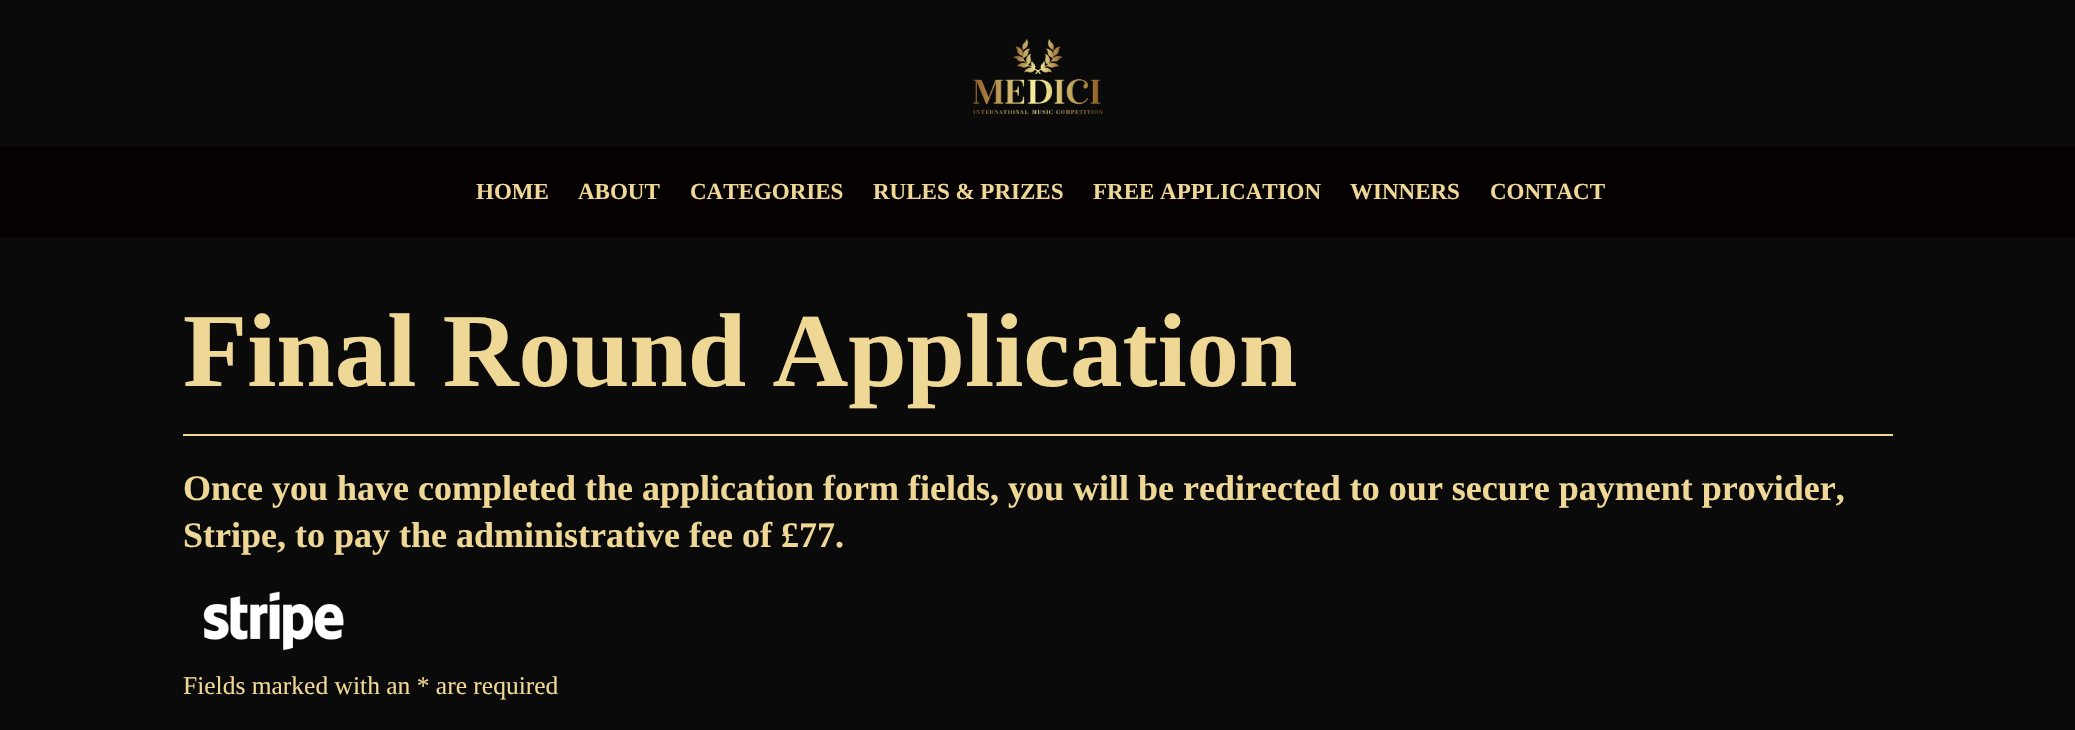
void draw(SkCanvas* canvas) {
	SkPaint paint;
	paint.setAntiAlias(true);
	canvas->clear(0xff0a0a0a);
	canvas->drawImageRect(SkImages::DeferredFromEncodedData(SkData::MakeFromFileName("img1.png")), SkRect::MakeXYWH(973, 38, 130, 77), SkSamplingOptions());
	paint.setColor(0xff050101);
	canvas->drawRect(SkRect::MakeXYWH(0, 147, 2075, 90), paint);
	SkFont f1(fontMgr->matchFamilyStyle("Liberation Serif", SkFontStyle::Bold()), 23);
	f1.setSubpixel(true);
	paint.setColor(0xffefd895);
	canvas->drawString("HOME", 476, 199, f1, paint);
	canvas->drawString("ABOUT", 578, 199, f1, paint);
	canvas->drawString("CATEGORIES", 690, 199, f1, paint);
	canvas->drawString("RULES & PRIZES", 873, 199, f1, paint);
	canvas->drawString("FREE APPLICATION", 1093, 199, f1, paint);
	canvas->drawString("WINNERS", 1350, 199, f1, paint);
	canvas->drawString("CONTACT", 1490, 199, f1, paint);
	paint.setColor(0xffefd996);
	canvas->drawRect(SkRect::MakeXYWH(183, 434, 1710, 2), paint);
	SkFont f2(fontMgr->matchFamilyStyle("Liberation Serif", SkFontStyle::Bold()), 105);
	f2.setSubpixel(true);
	paint.setColor(0xffefd895);
	canvas->drawString("Final Round Application", 183, 386, f2, paint);
	SkFont f3(fontMgr->matchFamilyStyle("Liberation Serif", SkFontStyle::Bold()), 36);
	f3.setSubpixel(true);
	canvas->drawString("Once you have completed the application form fields, you will be redirected to our secure payment provider,", 183, 500, f3, paint);
	canvas->drawString("Stripe, to pay the administrative fee of £77.", 183, 547, f3, paint);
	canvas->drawImageRect(SkImages::DeferredFromEncodedData(SkData::MakeFromFileName("img2.png")), SkRect::MakeXYWH(203, 591, 141, 60), SkSamplingOptions());
	SkFont f4(fontMgr->matchFamilyStyle("Liberation Serif", SkFontStyle::Normal()), 25.5);
	f4.setSubpixel(true);
	canvas->drawString("Fields marked with an * are required", 183, 694, f4, paint);
}
